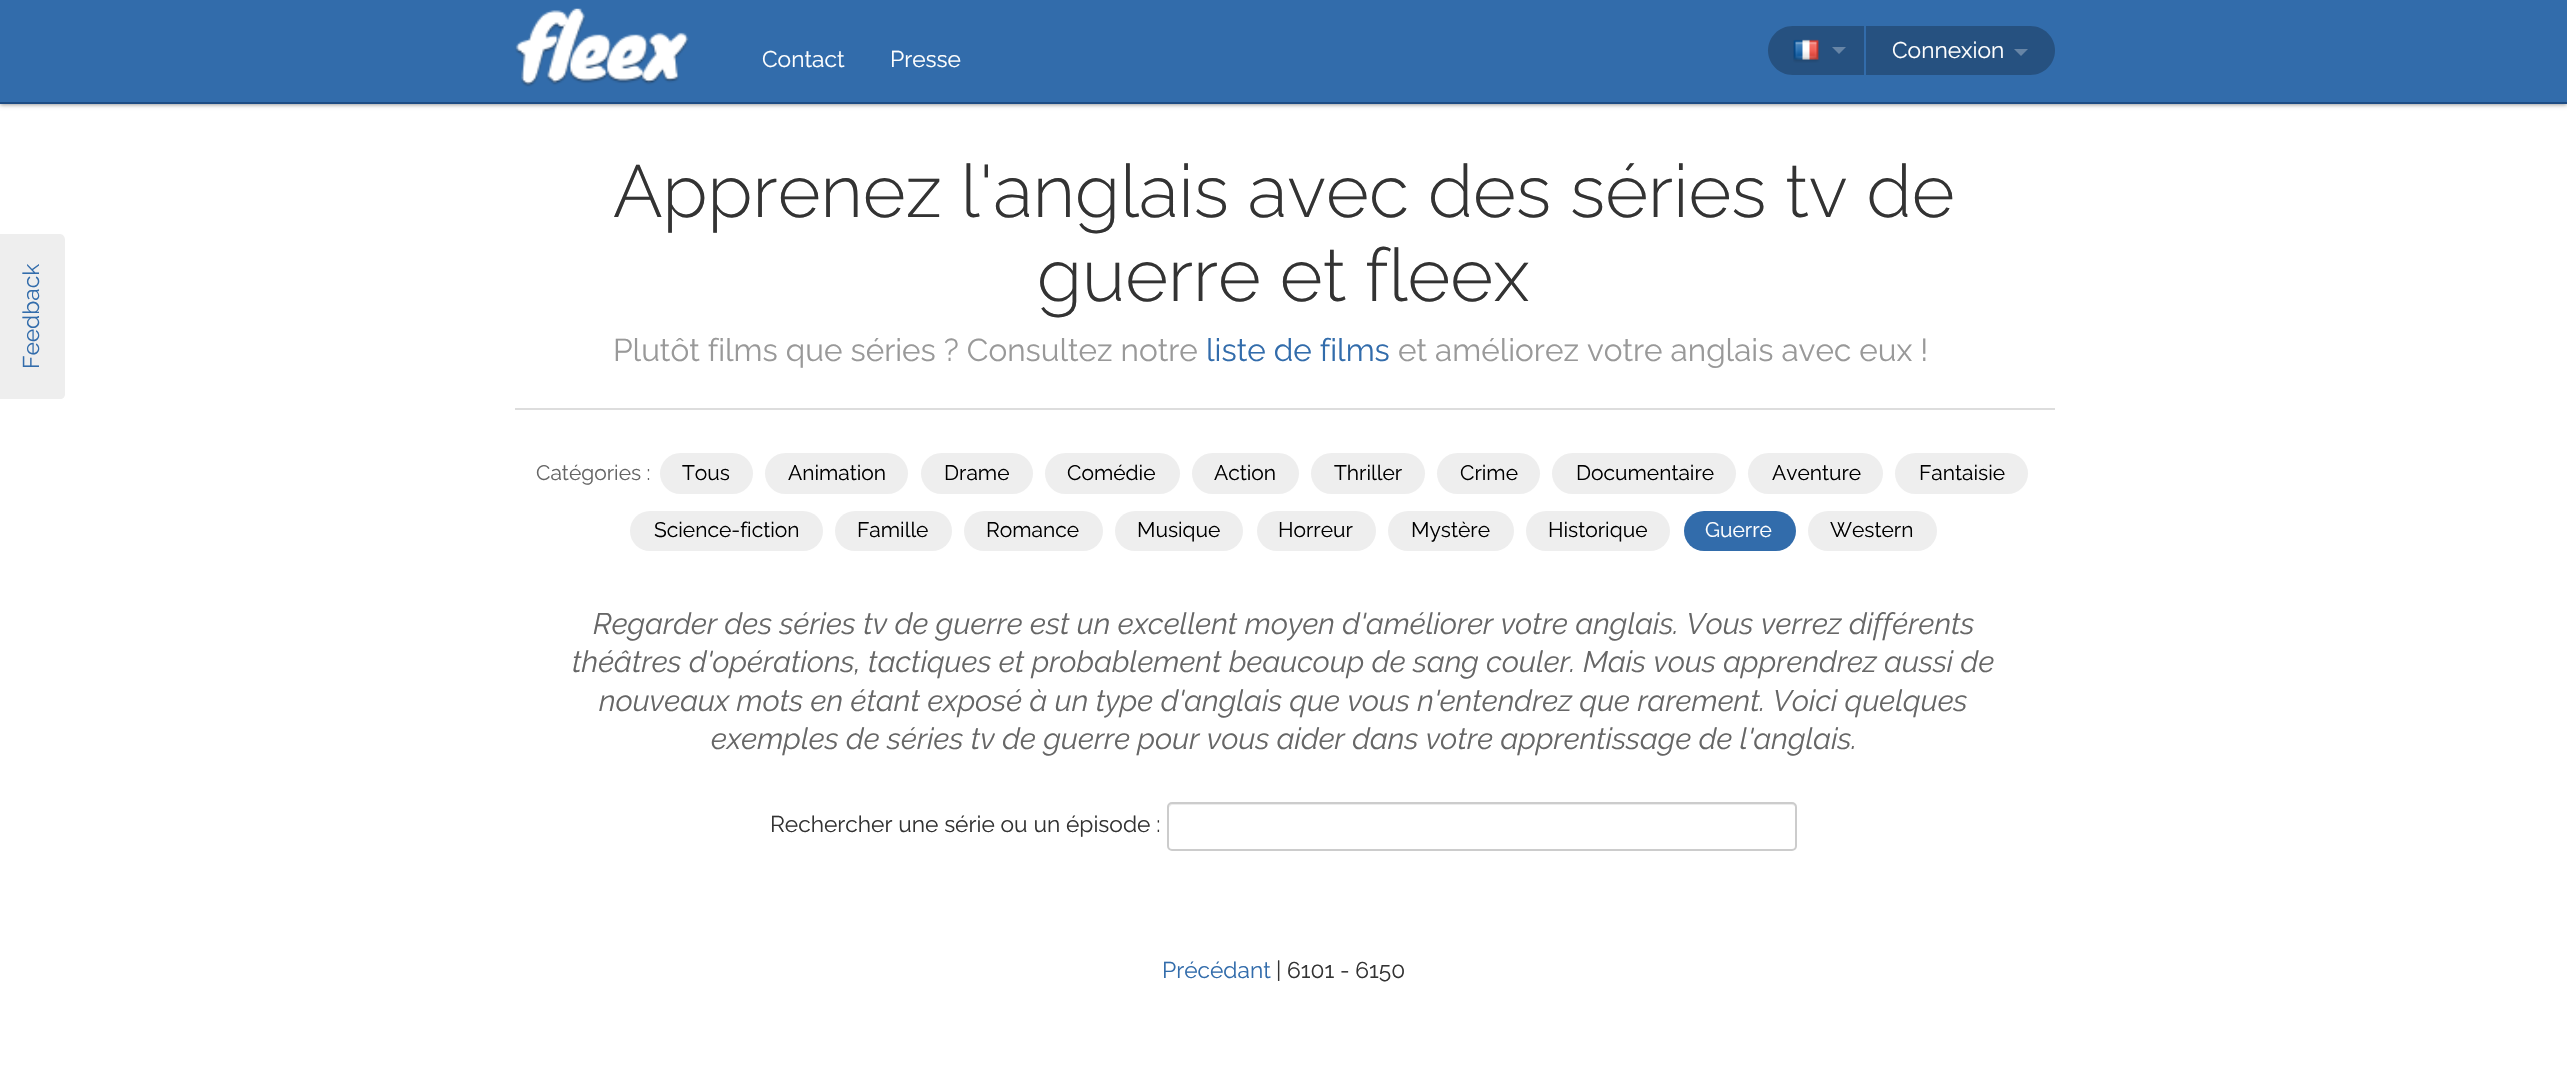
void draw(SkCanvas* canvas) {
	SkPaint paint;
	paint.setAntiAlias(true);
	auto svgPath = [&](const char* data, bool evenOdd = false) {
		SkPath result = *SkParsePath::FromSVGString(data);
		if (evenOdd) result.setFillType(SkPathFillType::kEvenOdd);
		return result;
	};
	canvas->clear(0xffffffff);
	paint.setColor(0xff9d9d9d);
	paint.setMaskFilter(SkMaskFilter::MakeBlur(kNormal_SkBlurStyle, 2));
	canvas->drawRect(SkRect::MakeXYWH(0, 2, 2567, 103), paint);
	paint.setMaskFilter(nullptr);
	paint.setColor(0xff326cab);
	canvas->drawRect(SkRect::MakeXYWH(0, 0, 2567, 102), paint);
	paint.setColor(0xff1d4c84);
	canvas->drawRect(SkRect::MakeXYWH(0, 102, 2567, 2), paint);
	canvas->drawImageRect(SkImages::DeferredFromEncodedData(SkData::MakeFromFileName("img1.png")), SkRect::MakeXYWH(515, 8, 174, 79), SkSamplingOptions());
	SkFont f1(fontMgr->matchFamilyStyle("Raleway", SkFontStyle::Normal()), 22.75);
	f1.setSubpixel(true);
	paint.setColor(0xffffffff);
	canvas->drawString("Contact", 762, 67, f1, paint);
	canvas->drawString("Presse", 890, 67, f1, paint);
	paint.setColor(0xff265180);
	canvas->drawPath(svgPath("M1792.5 26H1864V75H1792.5C1779 75 1768 64 1768 50.5C1768 37 1779 26 1792.5 26Z"), paint);
	canvas->drawImageRect(SkImages::DeferredFromEncodedData(SkData::MakeFromFileName("img2.png")), SkRect::MakeXYWH(1793, 39, 27, 24), SkSamplingOptions());
	paint.setColor(0xff6785a6);
	canvas->drawPath(svgPath("M1832 47H1846L1839 54Z"), paint);
	paint.setColor(0xff265180);
	canvas->drawPath(svgPath("M1866 26H2030.5C2044 26 2055 37 2055 50.5C2055 64 2044 75 2030.5 75H1866Z"), paint);
	paint.setColor(0xffffffff);
	canvas->drawString("Connexion", 1892, 58, f1, paint);
	paint.setColor(0xff6785a6);
	canvas->drawPath(svgPath("M2014 49H2028L2021 56Z"), paint);
	paint.setColor(0xffeeeeee);
	canvas->drawPath(svgPath("M-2 399V234H60C63 234 65 237 65 240V394C65 397 63 399 60 399Z"), paint);
	paint.setColor(0xff326cab);
	canvas->save();
	canvas->rotate(-90, 39, 369);
	canvas->drawString("Feedback", 39, 369, f1, paint);
	canvas->restore();
	SkFont f2(fontMgr->matchFamilyStyle("Raleway", SkFontStyle(300, SkFontStyle::kNormal_Width, SkFontStyle::kUpright_Slant)), 73.5);
	f2.setSubpixel(true);
	paint.setColor(0xff333333);
	canvas->drawString("Apprenez l'anglais avec des séries tv de", 613, 217, f2, paint);
	canvas->drawString("guerre et fleex", 1037, 301, f2, paint);
	SkFont f3(fontMgr->matchFamilyStyle("Raleway", SkFontStyle::Normal()), 31.5);
	f3.setSubpixel(true);
	paint.setColor(0xff999999);
	canvas->drawString("Plutôt films que séries ? Consultez notre", 613, 361, f3, paint);
	paint.setColor(0xff326cab);
	canvas->drawString("liste de films", 1206, 361, f3, paint);
	paint.setColor(0xff999999);
	canvas->drawString("et améliorez votre anglais avec eux !", 1398, 361, f3, paint);
	paint.setColor(0xffdddddd);
	canvas->drawRect(SkRect::MakeXYWH(515, 408, 1540, 2), paint);
	SkFont f4(fontMgr->matchFamilyStyle("Raleway", SkFontStyle::Normal()), 21);
	f4.setSubpixel(true);
	paint.setColor(0xff666666);
	canvas->drawString("Catégories :", 536, 480, f4, paint);
	paint.setColor(0xffeeeeee);
	canvas->drawRoundRect(SkRect::MakeXYWH(660, 453, 93, 41), 20.5, 20.5, paint);
	paint.setColor(0xff000000);
	canvas->drawString("Tous", 682, 480, f4, paint);
	paint.setColor(0xffeeeeee);
	canvas->drawRoundRect(SkRect::MakeXYWH(765, 453, 143, 41), 20.5, 20.5, paint);
	paint.setColor(0xff000000);
	canvas->drawString("Animation", 788, 480, f4, paint);
	paint.setColor(0xffeeeeee);
	canvas->drawRoundRect(SkRect::MakeXYWH(921, 453, 112, 41), 20.5, 20.5, paint);
	paint.setColor(0xff000000);
	canvas->drawString("Drame", 944, 480, f4, paint);
	paint.setColor(0xffeeeeee);
	canvas->drawRoundRect(SkRect::MakeXYWH(1045, 453, 135, 41), 20.5, 20.5, paint);
	paint.setColor(0xff000000);
	canvas->drawString("Comédie", 1067, 480, f4, paint);
	paint.setColor(0xffeeeeee);
	canvas->drawRoundRect(SkRect::MakeXYWH(1192, 453, 107, 41), 20.5, 20.5, paint);
	paint.setColor(0xff000000);
	canvas->drawString("Action", 1214, 480, f4, paint);
	paint.setColor(0xffeeeeee);
	canvas->drawRoundRect(SkRect::MakeXYWH(1311, 453, 114, 41), 20.5, 20.5, paint);
	paint.setColor(0xff000000);
	canvas->drawString("Thriller", 1334, 480, f4, paint);
	paint.setColor(0xffeeeeee);
	canvas->drawRoundRect(SkRect::MakeXYWH(1437, 453, 103, 41), 20.5, 20.5, paint);
	paint.setColor(0xff000000);
	canvas->drawString("Crime", 1460, 480, f4, paint);
	paint.setColor(0xffeeeeee);
	canvas->drawRoundRect(SkRect::MakeXYWH(1552, 453, 184, 41), 20.5, 20.5, paint);
	paint.setColor(0xff000000);
	canvas->drawString("Documentaire", 1576, 480, f4, paint);
	paint.setColor(0xffeeeeee);
	canvas->drawRoundRect(SkRect::MakeXYWH(1748, 453, 135, 41), 20.5, 20.5, paint);
	paint.setColor(0xff000000);
	canvas->drawString("Aventure", 1772, 480, f4, paint);
	paint.setColor(0xffeeeeee);
	canvas->drawRoundRect(SkRect::MakeXYWH(1895, 453, 133, 41), 20.5, 20.5, paint);
	paint.setColor(0xff000000);
	canvas->drawString("Fantaisie", 1919, 480, f4, paint);
	paint.setColor(0xffeeeeee);
	canvas->drawRoundRect(SkRect::MakeXYWH(630, 511, 193, 40), 20, 20, paint);
	paint.setColor(0xff000000);
	canvas->drawString("Science-fiction", 654, 537, f4, paint);
	paint.setColor(0xffeeeeee);
	canvas->drawRoundRect(SkRect::MakeXYWH(835, 511, 117, 40), 20, 20, paint);
	paint.setColor(0xff000000);
	canvas->drawString("Famille", 857, 537, f4, paint);
	paint.setColor(0xffeeeeee);
	canvas->drawRoundRect(SkRect::MakeXYWH(964, 511, 139, 40), 20, 20, paint);
	paint.setColor(0xff000000);
	canvas->drawString("Romance", 986, 537, f4, paint);
	paint.setColor(0xffeeeeee);
	canvas->drawRoundRect(SkRect::MakeXYWH(1115, 511, 128, 40), 20, 20, paint);
	paint.setColor(0xff000000);
	canvas->drawString("Musique", 1137, 537, f4, paint);
	paint.setColor(0xffeeeeee);
	canvas->drawRoundRect(SkRect::MakeXYWH(1257, 511, 119, 40), 20, 20, paint);
	paint.setColor(0xff000000);
	canvas->drawString("Horreur", 1278, 537, f4, paint);
	paint.setColor(0xffeeeeee);
	canvas->drawRoundRect(SkRect::MakeXYWH(1388, 511, 126, 40), 20, 20, paint);
	paint.setColor(0xff000000);
	canvas->drawString("Mystère", 1411, 537, f4, paint);
	paint.setColor(0xffeeeeee);
	canvas->drawRoundRect(SkRect::MakeXYWH(1526, 511, 144, 40), 20, 20, paint);
	paint.setColor(0xff000000);
	canvas->drawString("Historique", 1548, 537, f4, paint);
	paint.setColor(0xff326cab);
	canvas->drawRoundRect(SkRect::MakeXYWH(1684, 511, 112, 40), 20, 20, paint);
	paint.setColor(0xffffffff);
	canvas->drawString("Guerre", 1705, 537, f4, paint);
	paint.setColor(0xffeeeeee);
	canvas->drawRoundRect(SkRect::MakeXYWH(1808, 511, 129, 40), 20, 20, paint);
	paint.setColor(0xff000000);
	canvas->drawString("Western", 1830, 537, f4, paint);
	SkFont f5(fontMgr->matchFamilyStyle("Raleway", SkFontStyle::Italic()), 29.75);
	f5.setSubpixel(true);
	paint.setColor(0xff666666);
	canvas->drawString("Regarder des séries tv de guerre est un excellent moyen d'améliorer votre anglais. Vous verrez différents", 593, 634, f5, paint);
	canvas->drawString("théâtres d'opérations, tactiques et probablement beaucoup de sang couler. Mais vous apprendrez aussi de", 572, 672, f5, paint);
	canvas->drawString("nouveaux mots en étant exposé à un type d'anglais que vous n'entendrez que rarement. Voici quelques", 599, 711, f5, paint);
	canvas->drawString("exemples de séries tv de guerre pour vous aider dans votre apprentissage de l'anglais.", 711, 749, f5, paint);
	paint.setColor(0xff333333);
	canvas->drawString("Rechercher une série ou un épisode :", 770, 832, f1, paint);
	paint.setColor(0xffececec);
	canvas->drawPath(svgPath("M1172 805H1792C1794 805 1796 807 1796 808C1796 805 1795 803 1792 803H1173C1170 803 1169 805 1169 808C1169 807 1171 805 1172 805Z"), paint);
	paint.setStroke(true);
	paint.setStrokeWidth(2);
	paint.setColor(0xffcccccc);
	canvas->drawRoundRect(SkRect::MakeXYWH(1168, 803, 628, 47), 4, 4, paint);
	paint.setStroke(false);
	paint.setColor(0xff326cab);
	canvas->drawString("Précédant", 1162, 978, f1, paint);
	paint.setColor(0xff333333);
	canvas->drawString("| 6101 - 6150", 1276, 978, f1, paint);
}
